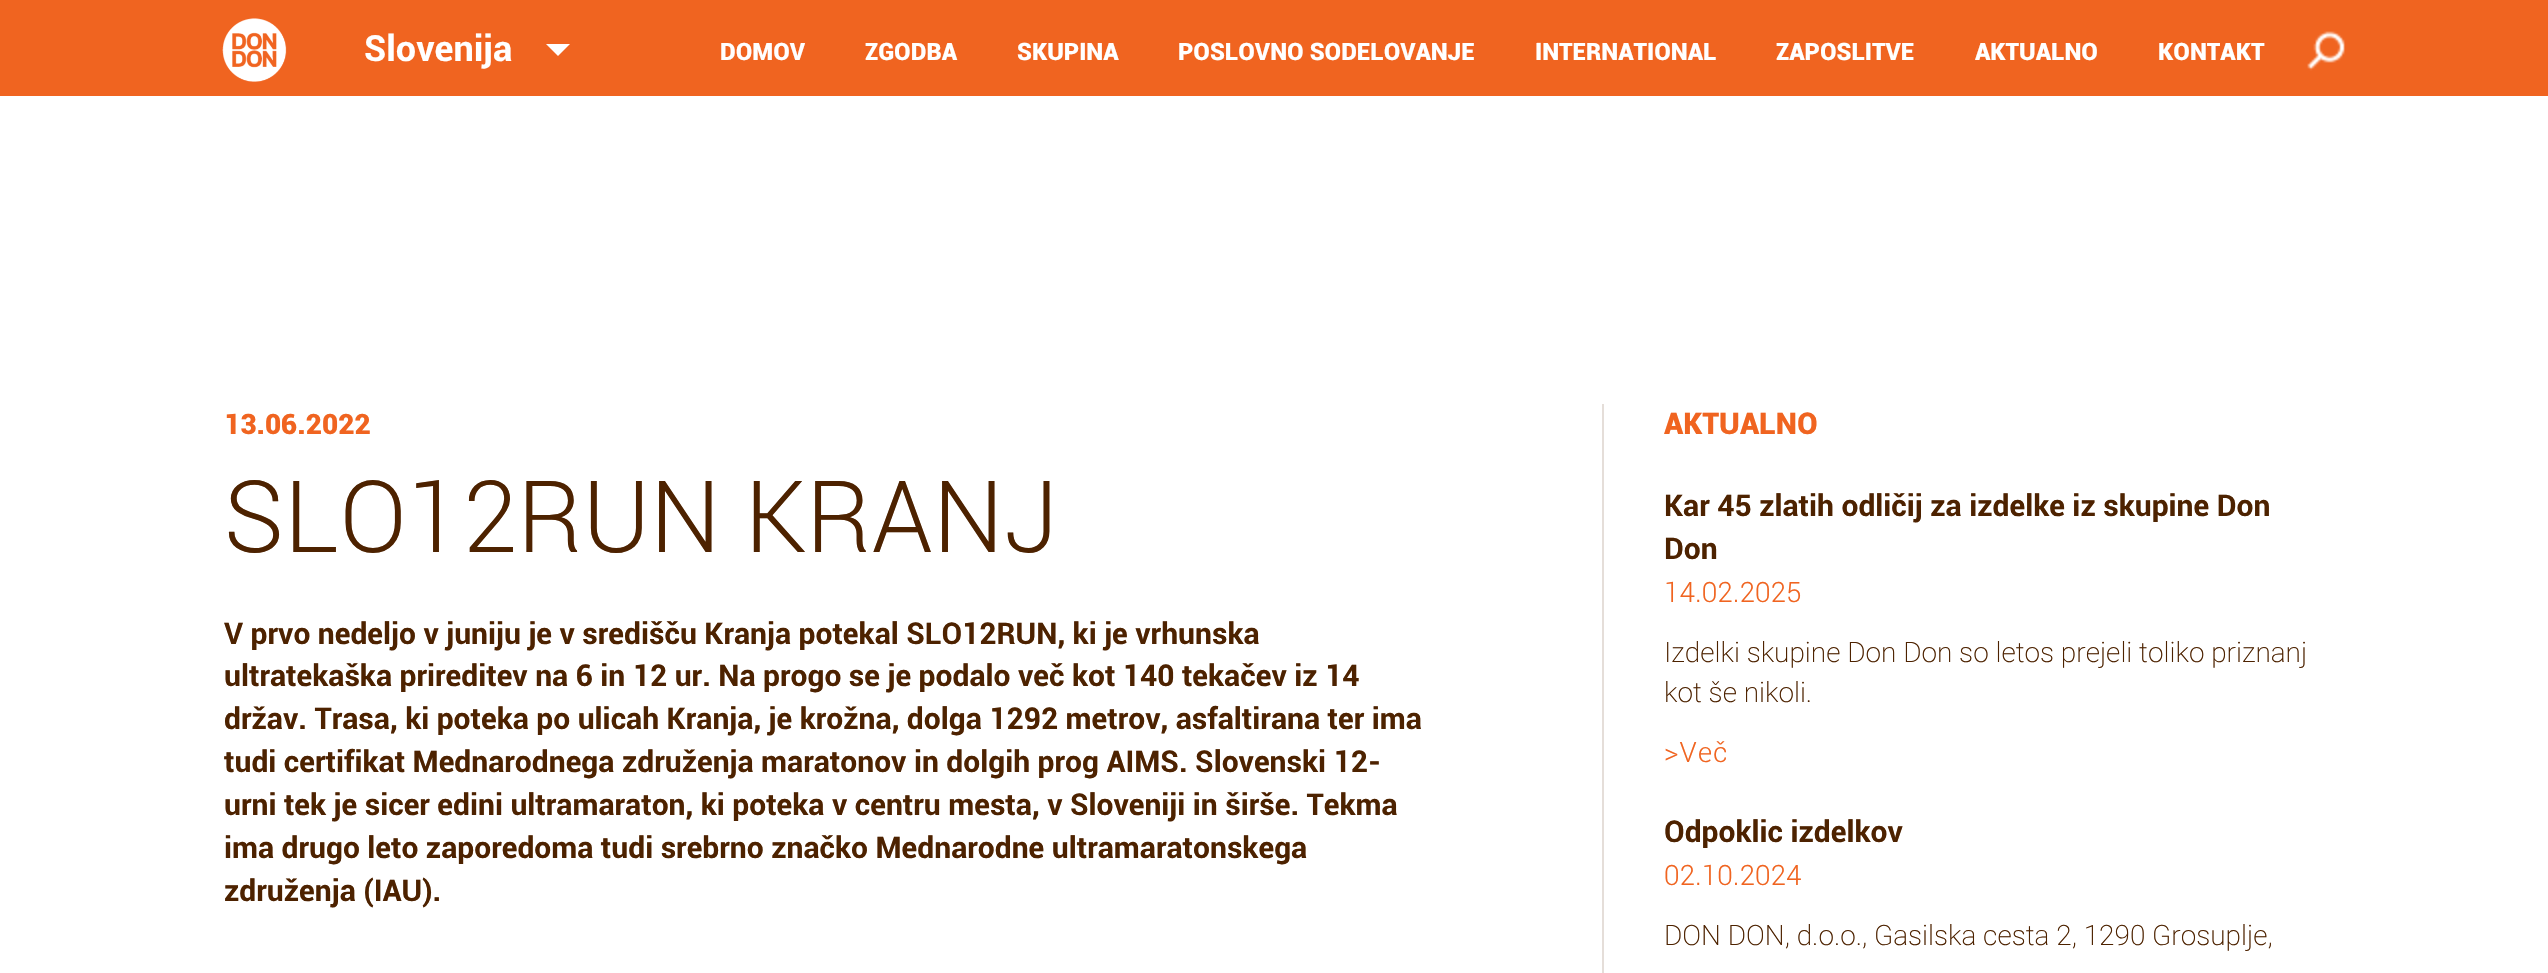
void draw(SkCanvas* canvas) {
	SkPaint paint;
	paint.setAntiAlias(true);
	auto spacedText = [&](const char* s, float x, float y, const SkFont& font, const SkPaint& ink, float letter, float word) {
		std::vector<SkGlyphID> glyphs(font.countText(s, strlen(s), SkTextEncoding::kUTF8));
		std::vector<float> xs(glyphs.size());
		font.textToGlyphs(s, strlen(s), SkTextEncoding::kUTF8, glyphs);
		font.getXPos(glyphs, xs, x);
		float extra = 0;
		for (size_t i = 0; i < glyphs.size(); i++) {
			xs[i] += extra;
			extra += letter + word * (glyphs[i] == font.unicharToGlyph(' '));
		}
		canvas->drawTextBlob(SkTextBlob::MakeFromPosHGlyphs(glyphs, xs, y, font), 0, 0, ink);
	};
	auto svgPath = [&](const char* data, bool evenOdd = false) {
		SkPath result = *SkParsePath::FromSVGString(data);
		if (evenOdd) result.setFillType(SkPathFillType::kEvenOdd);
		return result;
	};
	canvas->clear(0xffffffff);
	paint.setColor(0xfff06420);
	canvas->drawRect(SkRect::MakeXYWH(0, 0, 2548, 96), paint);
	canvas->drawImageRect(SkImages::DeferredFromEncodedData(SkData::MakeFromFileName("img1.png")), SkRect::MakeXYWH(222, 18, 65, 64), SkSamplingOptions());
	SkFont f1(fontMgr->matchFamilyStyle("Roboto", SkFontStyle::Bold()), 36);
	f1.setSubpixel(true);
	paint.setColor(0xffffffff);
	canvas->drawString("Slovenija", 364, 61, f1, paint);
	canvas->drawPath(svgPath("M546 44H570L558 56Z"), paint);
	SkFont f2(fontMgr->matchFamilyStyle("Roboto", SkFontStyle(900, SkFontStyle::kNormal_Width, SkFontStyle::kUpright_Slant)), 24);
	f2.setSubpixel(true);
	canvas->drawString("DOMOV", 720, 60, f2, paint);
	canvas->drawString("ZGODBA", 865, 60, f2, paint);
	canvas->drawString("SKUPINA", 1017, 60, f2, paint);
	canvas->drawString("POSLOVNO SODELOVANJE", 1178, 60, f2, paint);
	canvas->drawString("INTERNATIONAL", 1535, 60, f2, paint);
	canvas->drawString("ZAPOSLITVE", 1776, 60, f2, paint);
	canvas->drawString("AKTUALNO", 1975, 60, f2, paint);
	canvas->drawString("KONTAKT", 2158, 60, f2, paint);
	canvas->drawImageRect(SkImages::DeferredFromEncodedData(SkData::MakeFromFileName("img2.png")), SkRect::MakeXYWH(2307, 31, 38, 40), SkSamplingOptions());
	SkFont f3(fontMgr->matchFamilyStyle("Roboto", SkFontStyle(900, SkFontStyle::kNormal_Width, SkFontStyle::kUpright_Slant)), 28);
	f3.setSubpixel(true);
	paint.setColor(0xfff06420);
	canvas->drawString("13.06.2022", 224, 434, f3, paint);
	SkFont f4(fontMgr->matchFamilyStyle("Roboto", SkFontStyle(300, SkFontStyle::kNormal_Width, SkFontStyle::kUpright_Slant)), 100);
	f4.setSubpixel(true);
	paint.setColor(0xff4d2200);
	canvas->drawString("SLO12RUN KRANJ", 224, 552, f4, paint);
	SkFont f5(fontMgr->matchFamilyStyle("Roboto", SkFontStyle::Bold()), 30);
	f5.setSubpixel(true);
	canvas->drawString("V prvo nedeljo v juniju je v središču Kranja potekal SLO12RUN, ki je vrhunska", 224, 644, f5, paint);
	canvas->drawString("ultratekaška prireditev na 6 in 12 ur. Na progo se je podalo več kot 140 tekačev iz 14", 224, 686, f5, paint);
	canvas->drawString("držav. Trasa, ki poteka po ulicah Kranja, je krožna, dolga 1292 metrov, asfaltirana ter ima", 224, 729, f5, paint);
	canvas->drawString("tudi certifikat Mednarodnega združenja maratonov in dolgih prog AIMS. Slovenski 12-", 224, 772, f5, paint);
	canvas->drawString("urni tek je sicer edini ultramaraton, ki poteka v centru mesta, v Sloveniji in širše. Tekma", 224, 815, f5, paint);
	canvas->drawString("ima drugo leto zaporedoma tudi srebrno značko Mednarodne ultramaratonskega", 224, 858, f5, paint);
	canvas->drawString("združenja (IAU).", 224, 901, f5, paint);
	paint.setColor(0xffe5ded9);
	canvas->drawRect(SkRect::MakeXYWH(1602, 404, 2, 569), paint);
	SkFont f6(fontMgr->matchFamilyStyle("Roboto", SkFontStyle(900, SkFontStyle::kNormal_Width, SkFontStyle::kUpright_Slant)), 30);
	f6.setSubpixel(true);
	paint.setColor(0xfff06420);
	canvas->drawString("AKTUALNO", 1664, 434, f6, paint);
	paint.setColor(0xff4d2200);
	canvas->drawString("Kar 45 zlatih odličij za izdelke iz skupine Don", 1664, 516, f5, paint);
	canvas->drawString("Don", 1664, 559, f5, paint);
	SkFont f7(fontMgr->matchFamilyStyle("Roboto", SkFontStyle(300, SkFontStyle::kNormal_Width, SkFontStyle::kUpright_Slant)), 28);
	f7.setSubpixel(true);
	paint.setColor(0xfff06420);
	canvas->drawString("14.02.2025", 1664, 602, f7, paint);
	SkFont f8(fontMgr->matchFamilyStyle("Roboto", SkFontStyle(200, SkFontStyle::kNormal_Width, SkFontStyle::kUpright_Slant)), 28);
	f8.setSubpixel(true);
	paint.setColor(0xff4d2200);
	canvas->drawString("Izdelki skupine Don Don so letos prejeli toliko priznanj", 1664, 662, f8, paint);
	canvas->drawString("kot še nikoli.", 1664, 702, f8, paint);
	paint.setColor(0xfff06420);
	spacedText(">Več", 1664, 762, f7, paint, 1, 0);
	paint.setColor(0xff4d2200);
	canvas->drawString("Odpoklic izdelkov", 1664, 842, f5, paint);
	paint.setColor(0xfff06420);
	canvas->drawString("02.10.2024", 1664, 885, f7, paint);
	paint.setColor(0xff4d2200);
	canvas->drawString("DON DON, d.o.o., Gasilska cesta 2, 1290 Grosuplje,", 1664, 945, f8, paint);
}
